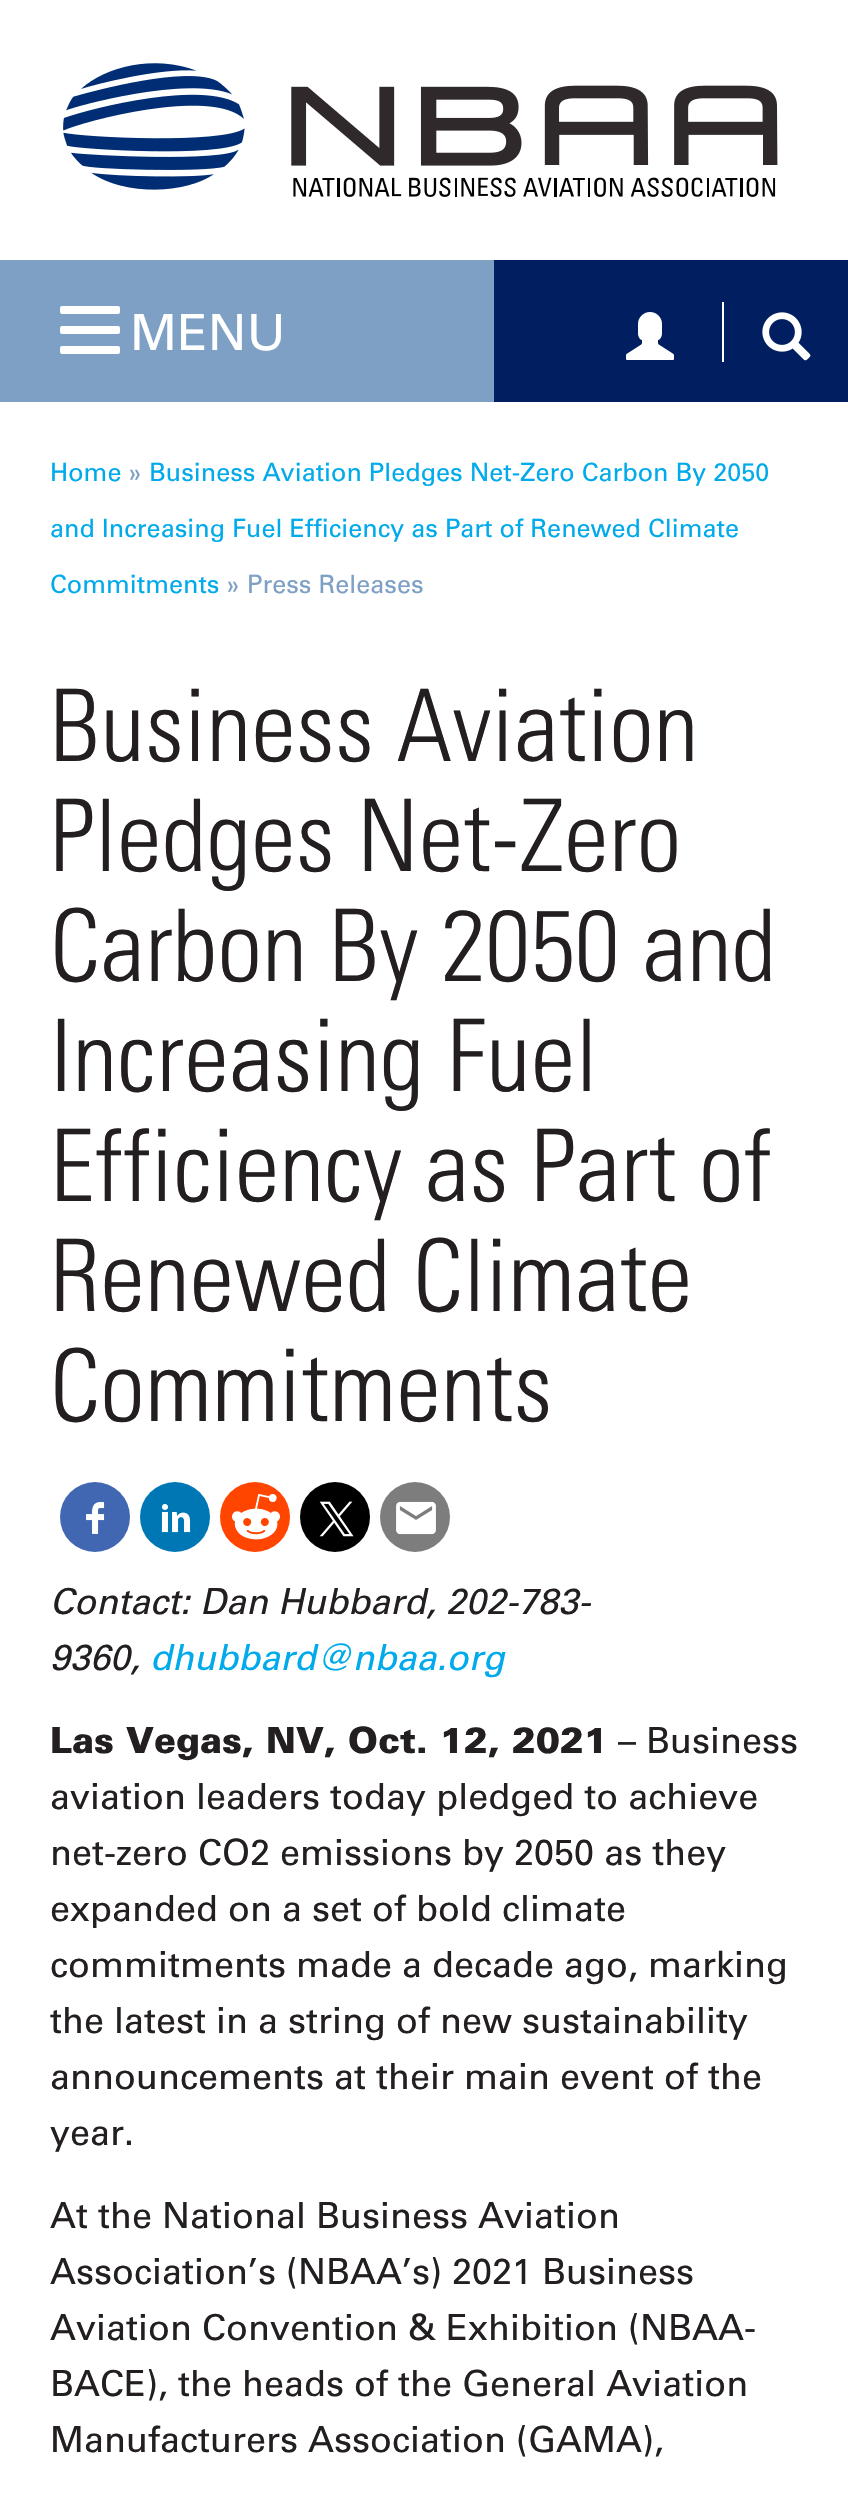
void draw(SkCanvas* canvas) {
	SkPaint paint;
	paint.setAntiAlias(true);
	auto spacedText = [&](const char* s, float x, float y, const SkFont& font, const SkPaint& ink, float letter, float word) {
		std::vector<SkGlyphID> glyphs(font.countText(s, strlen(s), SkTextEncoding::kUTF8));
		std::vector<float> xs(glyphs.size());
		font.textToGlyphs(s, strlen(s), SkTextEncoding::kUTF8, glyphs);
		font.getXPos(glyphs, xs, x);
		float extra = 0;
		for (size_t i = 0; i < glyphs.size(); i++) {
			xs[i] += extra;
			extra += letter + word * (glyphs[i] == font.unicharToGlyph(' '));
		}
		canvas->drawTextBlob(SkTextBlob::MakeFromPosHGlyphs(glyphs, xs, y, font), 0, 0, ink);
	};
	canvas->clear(0xffffffff);
	canvas->drawImageRect(SkImages::DeferredFromEncodedData(SkData::MakeFromFileName("img1.png")), SkRect::MakeXYWH(63, 63, 715, 134), SkSamplingOptions());
	paint.setColor(0xff001e60);
	canvas->drawRect(SkRect::MakeXYWH(494, 260, 354, 142), paint);
	paint.setColor(0xff7da0c4);
	canvas->drawRect(SkRect::MakeXYWH(0, 260, 494, 142), paint);
	paint.setColor(0xffffffff);
	canvas->drawRoundRect(SkRect::MakeXYWH(60, 306, 60, 8), 2, 2, paint);
	canvas->drawRoundRect(SkRect::MakeXYWH(60, 326, 60, 8), 2, 2, paint);
	canvas->drawRoundRect(SkRect::MakeXYWH(60, 346, 60, 8), 2, 2, paint);
	SkFont f1(fontMgr->matchFamilyStyle("Univers", SkFontStyle::Normal()), 50);
	f1.setSubpixel(true);
	canvas->drawString("MENU", 130, 350, f1, paint);
	canvas->drawImageRect(SkImages::DeferredFromEncodedData(SkData::MakeFromFileName("img2.png")), SkRect::MakeXYWH(626, 312, 48, 48), SkSamplingOptions());
	canvas->drawRect(SkRect::MakeXYWH(722, 302, 2, 60), paint);
	canvas->drawImageRect(SkImages::DeferredFromEncodedData(SkData::MakeFromFileName("img3.png")), SkRect::MakeXYWH(762, 312, 49, 49), SkSamplingOptions());
	SkFont f2(fontMgr->matchFamilyStyle("Univers", SkFontStyle::Normal()), 25.2);
	f2.setSubpixel(true);
	paint.setColor(0xff00aaeb);
	canvas->drawString("Home", 50, 481, f2, paint);
	paint.setColor(0xff7da0c4);
	canvas->drawString("»", 128, 481, f2, paint);
	paint.setColor(0xff00aaeb);
	canvas->drawString("Business Aviation Pledges Net-Zero Carbon By 2050", 149, 481, f2, paint);
	canvas->drawString("and Increasing Fuel Efficiency as Part of Renewed Climate", 50, 537, f2, paint);
	canvas->drawString("Commitments", 50, 593, f2, paint);
	paint.setColor(0xff7da0c4);
	canvas->drawString("» Press Releases", 226, 593, f2, paint);
	SkFont f3(fontMgr->matchFamilyStyle("Univers", SkFontStyle(300, SkFontStyle::kNormal_Width, SkFontStyle::kUpright_Slant)), 100);
	f3.setSubpixel(true);
	paint.setColor(0xff231f20);
	spacedText("Business Aviation", 50, 761, f3, paint, 0.25, 0);
	spacedText("Pledges Net-Zero", 50, 871, f3, paint, 0.25, 0);
	spacedText("Carbon By 2050 and", 50, 981, f3, paint, 0.25, 0);
	spacedText("Increasing Fuel", 50, 1091, f3, paint, 0.25, 0);
	spacedText("Efficiency as Part of", 50, 1201, f3, paint, 0.25, 0);
	spacedText("Renewed Climate", 50, 1311, f3, paint, 0.25, 0);
	spacedText("Commitments", 50, 1421, f3, paint, 0.25, 0);
	paint.setColor(0xff4267b2);
	canvas->drawCircle(95, 1517, 35, paint);
	canvas->drawImageRect(SkImages::DeferredFromEncodedData(SkData::MakeFromFileName("img4.png")), SkRect::MakeXYWH(86, 1502, 19, 32), SkSamplingOptions());
	paint.setColor(0xff0077b5);
	canvas->drawCircle(175, 1517, 35, paint);
	canvas->drawImageRect(SkImages::DeferredFromEncodedData(SkData::MakeFromFileName("img5.png")), SkRect::MakeXYWH(161, 1504, 30, 29), SkSamplingOptions());
	paint.setColor(0xffff4500);
	canvas->drawCircle(255, 1517, 35, paint);
	canvas->drawImageRect(SkImages::DeferredFromEncodedData(SkData::MakeFromFileName("img6.png")), SkRect::MakeXYWH(232, 1494, 48, 46), SkSamplingOptions());
	paint.setColor(0xff000000);
	canvas->drawCircle(335, 1517, 35, paint);
	canvas->drawImageRect(SkImages::DeferredFromEncodedData(SkData::MakeFromFileName("img7.png")), SkRect::MakeXYWH(319, 1501, 35, 36), SkSamplingOptions());
	paint.setColor(0xff7d7d7d);
	canvas->drawCircle(415, 1517, 35, paint);
	canvas->drawImageRect(SkImages::DeferredFromEncodedData(SkData::MakeFromFileName("img8.png")), SkRect::MakeXYWH(396, 1501, 40, 34), SkSamplingOptions());
	SkFont f4(fontMgr->matchFamilyStyle("Univers", SkFontStyle::Italic()), 36);
	f4.setSubpixel(true);
	paint.setColor(0xff231f20);
	canvas->drawString("Contact: Dan Hubbard, 202-783-", 50, 1614, f4, paint);
	canvas->drawString("9360,", 50, 1670, f4, paint);
	paint.setColor(0xff00aaeb);
	canvas->drawString("dhubbard@nbaa.org", 150, 1670, f4, paint);
	SkFont f5(fontMgr->matchFamilyStyle("Univers", SkFontStyle(900, SkFontStyle::kNormal_Width, SkFontStyle::kUpright_Slant)), 36);
	f5.setSubpixel(true);
	paint.setColor(0xff231f20);
	canvas->drawString("Las Vegas, NV, Oct. 12, 2021", 50, 1753, f5, paint);
	SkFont f6(fontMgr->matchFamilyStyle("Univers", SkFontStyle::Normal()), 36);
	f6.setSubpixel(true);
	canvas->drawString("– Business", 618, 1753, f6, paint);
	canvas->drawString("aviation leaders today pledged to achieve", 50, 1809, f6, paint);
	canvas->drawString("net-zero CO2 emissions by 2050 as they", 50, 1865, f6, paint);
	canvas->drawString("expanded on a set of bold climate", 50, 1921, f6, paint);
	canvas->drawString("commitments made a decade ago, marking", 50, 1977, f6, paint);
	canvas->drawString("the latest in a string of new sustainability", 50, 2033, f6, paint);
	canvas->drawString("announcements at their main event of the", 50, 2089, f6, paint);
	canvas->drawString("year.", 50, 2145, f6, paint);
	canvas->drawString("At the National Business Aviation", 50, 2228, f6, paint);
	canvas->drawString("Association’s (NBAA’s) 2021 Business", 50, 2284, f6, paint);
	canvas->drawString("Aviation Convention & Exhibition (NBAA-", 50, 2340, f6, paint);
	canvas->drawString("BACE), the heads of the General Aviation", 50, 2396, f6, paint);
	canvas->drawString("Manufacturers Association (GAMA),", 50, 2452, f6, paint);
}
